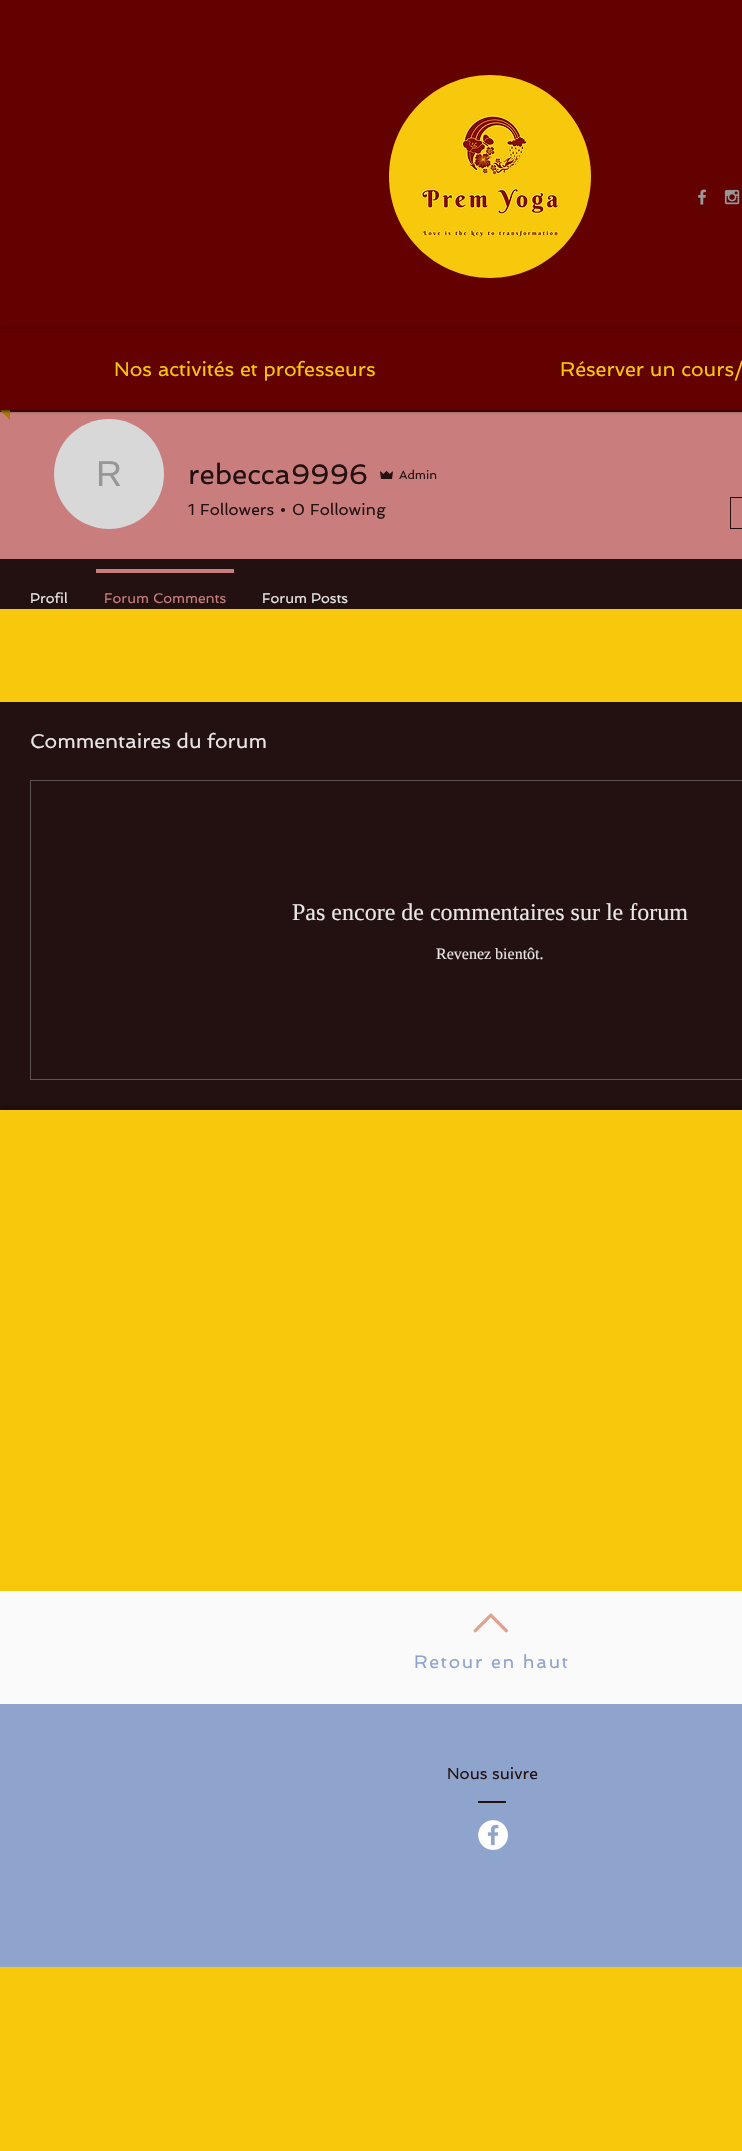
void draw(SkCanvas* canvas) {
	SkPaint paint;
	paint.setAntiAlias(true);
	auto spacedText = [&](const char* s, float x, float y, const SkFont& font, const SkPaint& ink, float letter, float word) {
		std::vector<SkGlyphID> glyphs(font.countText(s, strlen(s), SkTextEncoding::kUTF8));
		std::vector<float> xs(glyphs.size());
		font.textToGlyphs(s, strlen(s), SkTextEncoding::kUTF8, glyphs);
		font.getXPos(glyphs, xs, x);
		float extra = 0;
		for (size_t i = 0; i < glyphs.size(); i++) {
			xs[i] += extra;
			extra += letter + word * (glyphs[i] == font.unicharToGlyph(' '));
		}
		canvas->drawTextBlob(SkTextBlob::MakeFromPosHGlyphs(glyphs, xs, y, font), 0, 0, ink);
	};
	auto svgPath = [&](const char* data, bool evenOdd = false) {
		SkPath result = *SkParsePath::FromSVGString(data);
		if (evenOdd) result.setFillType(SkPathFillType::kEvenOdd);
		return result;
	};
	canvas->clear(0xfff7c80c);
	paint.setColor(0xff630000);
	canvas->drawRect(SkRect::MakeXYWH(0, 0, 742, 412), paint);
	canvas->drawImageRect(SkImages::DeferredFromEncodedData(SkData::MakeFromFileName("img1.png")), SkRect::MakeXYWH(389, 75, 202, 203), SkSamplingOptions());
	canvas->drawImageRect(SkImages::DeferredFromEncodedData(SkData::MakeFromFileName("img2.png")), SkRect::MakeXYWH(697, 189, 10, 16), SkSamplingOptions());
	canvas->drawImageRect(SkImages::DeferredFromEncodedData(SkData::MakeFromFileName("img3.png")), SkRect::MakeXYWH(724, 189, 16, 16), SkSamplingOptions());
	paint.setColor(0xffc97d7d);
	canvas->drawRect(SkRect::MakeXYWH(0, 412, 742, 147), paint);
	paint.setColor(0xffaa7b03);
	canvas->drawPath(svgPath("M0 410H10V420Z"), paint);
	canvas->save();
	canvas->clipPath(svgPath("M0 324H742V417H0ZM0 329H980V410H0Z", true), true);
	paint.setColor(0xb3000000);
	paint.setMaskFilter(SkMaskFilter::MakeBlur(kNormal_SkBlurStyle, 1.5));
	canvas->drawRect(SkRect::MakeXYWH(-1, 330, 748, 81), paint);
	paint.setMaskFilter(nullptr);
	canvas->restore();
	SkFont f1(fontMgr->matchFamilyStyle("Spinnaker", SkFontStyle::Normal()), 20);
	f1.setSubpixel(true);
	paint.setColor(0xfff7c80c);
	canvas->drawString("Nos activités et professeurs", 114, 376, f1, paint);
	canvas->drawString("Réserver un cours/", 560, 376, f1, paint);
	paint.setColor(0xffd8d8d8);
	canvas->drawCircle(109, 474, 55, paint);
	SkFont f2(fontMgr->matchFamilyStyle("Liberation Sans", SkFontStyle::Normal()), 36);
	f2.setSubpixel(true);
	paint.setColor(0xff979797);
	canvas->drawString("R", 96, 486, f2, paint);
	SkFont f3(fontMgr->matchFamilyStyle("Spinnaker", SkFontStyle::Normal()), 28);
	f3.setSubpixel(true);
	paint.setColor(0xff231111);
	canvas->drawString("rebecca9996", 188, 484, f3, paint);
	canvas->drawImageRect(SkImages::DeferredFromEncodedData(SkData::MakeFromFileName("img4.png")), SkRect::MakeXYWH(380, 471, 13, 8), SkSamplingOptions());
	SkFont f4(fontMgr->matchFamilyStyle("Spinnaker", SkFontStyle::Normal()), 12);
	f4.setSubpixel(true);
	canvas->drawString("Admin", 399, 479, f4, paint);
	SkFont f5(fontMgr->matchFamilyStyle("Spinnaker", SkFontStyle::Normal()), 16);
	f5.setSubpixel(true);
	canvas->drawString("1", 188, 515, f5, paint);
	canvas->drawString("Followers", 200, 515, f5, paint);
	canvas->drawCircle(283, 510, 2, paint);
	canvas->drawString("0", 292, 515, f5, paint);
	canvas->drawString("Following", 310, 515, f5, paint);
	paint.setStroke(true);
	paint.setStrokeWidth(1);
	canvas->drawRect(SkRect::MakeXYWH(730.5, 497.5, 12, 31), paint);
	paint.setStroke(false);
	canvas->drawRect(SkRect::MakeXYWH(0, 559, 742, 50), paint);
	SkFont f6(fontMgr->matchFamilyStyle("Spinnaker", SkFontStyle::Normal()), 14);
	f6.setSubpixel(true);
	paint.setColor(0xffe8e6e6);
	canvas->drawString("Profil", 30, 603, f6, paint);
	paint.setColor(0xffc97d7d);
	canvas->drawRect(SkRect::MakeXYWH(96, 569, 138, 4), paint);
	canvas->drawString("Forum Comments", 104, 603, f6, paint);
	paint.setColor(0xffe8e6e6);
	canvas->drawString("Forum Posts", 262, 603, f6, paint);
	paint.setColor(0xff231111);
	canvas->drawRect(SkRect::MakeXYWH(0, 702, 742, 408), paint);
	paint.setColor(0xffe8e6e6);
	canvas->drawString("Commentaires du forum", 30, 748, f1, paint);
	paint.setStroke(true);
	paint.setColor(0xff5e5151);
	canvas->drawRect(SkRect::MakeXYWH(30.5, 780.5, 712, 299), paint);
	SkFont f7(fontMgr->matchFamilyStyle("Liberation Serif", SkFontStyle::Normal()), 24);
	f7.setSubpixel(true);
	paint.setStroke(false);
	paint.setColor(0xffe8e6e6);
	canvas->drawString("Pas encore de commentaires sur le forum", 292, 920, f7, paint);
	SkFont f8(fontMgr->matchFamilyStyle("Liberation Serif", SkFontStyle::Normal()), 16);
	f8.setSubpixel(true);
	canvas->drawString("Revenez bientôt.", 436, 959, f8, paint);
	canvas->drawImageRect(SkImages::DeferredFromEncodedData(SkData::MakeFromFileName("img5.png")), SkRect::MakeXYWH(0, 1105, 35, 5), SkSamplingOptions());
	canvas->drawImageRect(SkImages::DeferredFromEncodedData(SkData::MakeFromFileName("img6.png")), SkRect::MakeXYWH(35, 1105, 707, 5), SkSamplingOptions());
	paint.setColor(0xfffafafa);
	canvas->drawRect(SkRect::MakeXYWH(0, 1591, 742, 113), paint);
	canvas->drawImageRect(SkImages::DeferredFromEncodedData(SkData::MakeFromFileName("img7.png")), SkRect::MakeXYWH(473, 1613, 35, 20), SkSamplingOptions());
	SkFont f9(fontMgr->matchFamilyStyle("Spinnaker", SkFontStyle::Normal()), 18);
	f9.setSubpixel(true);
	paint.setColor(0xff8fa4cd);
	spacedText("Retour en haut", 414, 1668, f9, paint, 1.75, 0);
	canvas->drawRect(SkRect::MakeXYWH(0, 1704, 742, 263), paint);
	paint.setColor(0xff231111);
	canvas->drawString("Nous suivre", 447, 1779, f5, paint);
	canvas->drawRect(SkRect::MakeXYWH(478, 1801, 28, 2), paint);
	canvas->drawImageRect(SkImages::DeferredFromEncodedData(SkData::MakeFromFileName("img8.png")), SkRect::MakeXYWH(478, 1820, 30, 30), SkSamplingOptions());
}
